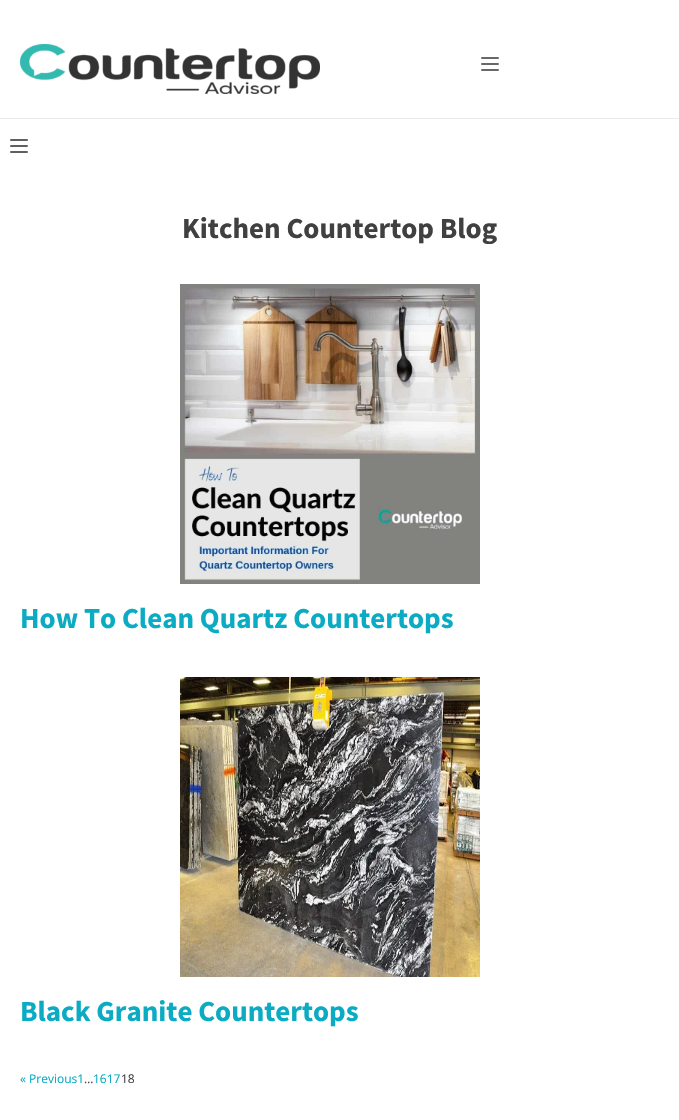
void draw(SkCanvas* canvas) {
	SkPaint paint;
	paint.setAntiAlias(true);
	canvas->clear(0xffffffff);
	canvas->drawImageRect(SkImages::DeferredFromEncodedData(SkData::MakeFromFileName("img1.png")), SkRect::MakeXYWH(20, 44, 300, 50), SkSamplingOptions());
	paint.setColor(0xff686868);
	canvas->drawRoundRect(SkRect::MakeXYWH(481, 57, 18, 2), 1, 1, paint);
	canvas->drawRoundRect(SkRect::MakeXYWH(481, 63, 18, 2), 1, 1, paint);
	canvas->drawRoundRect(SkRect::MakeXYWH(481, 69, 18, 2), 1, 1, paint);
	paint.setColor(0xffeaeaea);
	canvas->drawRect(SkRect::MakeXYWH(0, 118, 679, 1), paint);
	paint.setColor(0xff606060);
	canvas->drawRoundRect(SkRect::MakeXYWH(10, 139, 18, 2), 1, 1, paint);
	canvas->drawRoundRect(SkRect::MakeXYWH(10, 145, 18, 2), 1, 1, paint);
	canvas->drawRoundRect(SkRect::MakeXYWH(10, 151, 18, 2), 1, 1, paint);
	SkFont f1(fontMgr->matchFamilyStyle("Source Sans Pro", SkFontStyle::Bold()), 29);
	f1.setSubpixel(true);
	paint.setColor(0xff404040);
	canvas->drawString("Kitchen Countertop Blog", 182, 238, f1, paint);
	canvas->drawImageRect(SkImages::DeferredFromEncodedData(SkData::MakeFromFileName("img2.png")), SkRect::MakeXYWH(180, 284, 300, 300), SkSamplingOptions());
	paint.setColor(0xff0babc4);
	canvas->drawString("How To Clean Quartz Countertops", 20, 628, f1, paint);
	canvas->drawImageRect(SkImages::DeferredFromEncodedData(SkData::MakeFromFileName("img3.png")), SkRect::MakeXYWH(180, 677, 300, 300), SkSamplingOptions());
	canvas->drawString("Black Granite Countertops", 20, 1021, f1, paint);
	SkFont f2(fontMgr->matchFamilyStyle("Open Sans", SkFontStyle::Normal()), 12);
	f2.setSubpixel(true);
	canvas->drawString("« Previous1", 20, 1083, f2, paint);
	paint.setColor(0xff404040);
	canvas->drawString("…", 84, 1083, f2, paint);
	paint.setColor(0xff0babc4);
	canvas->drawString("1617", 93, 1083, f2, paint);
	paint.setColor(0xff404040);
	canvas->drawString("18", 121, 1083, f2, paint);
}
